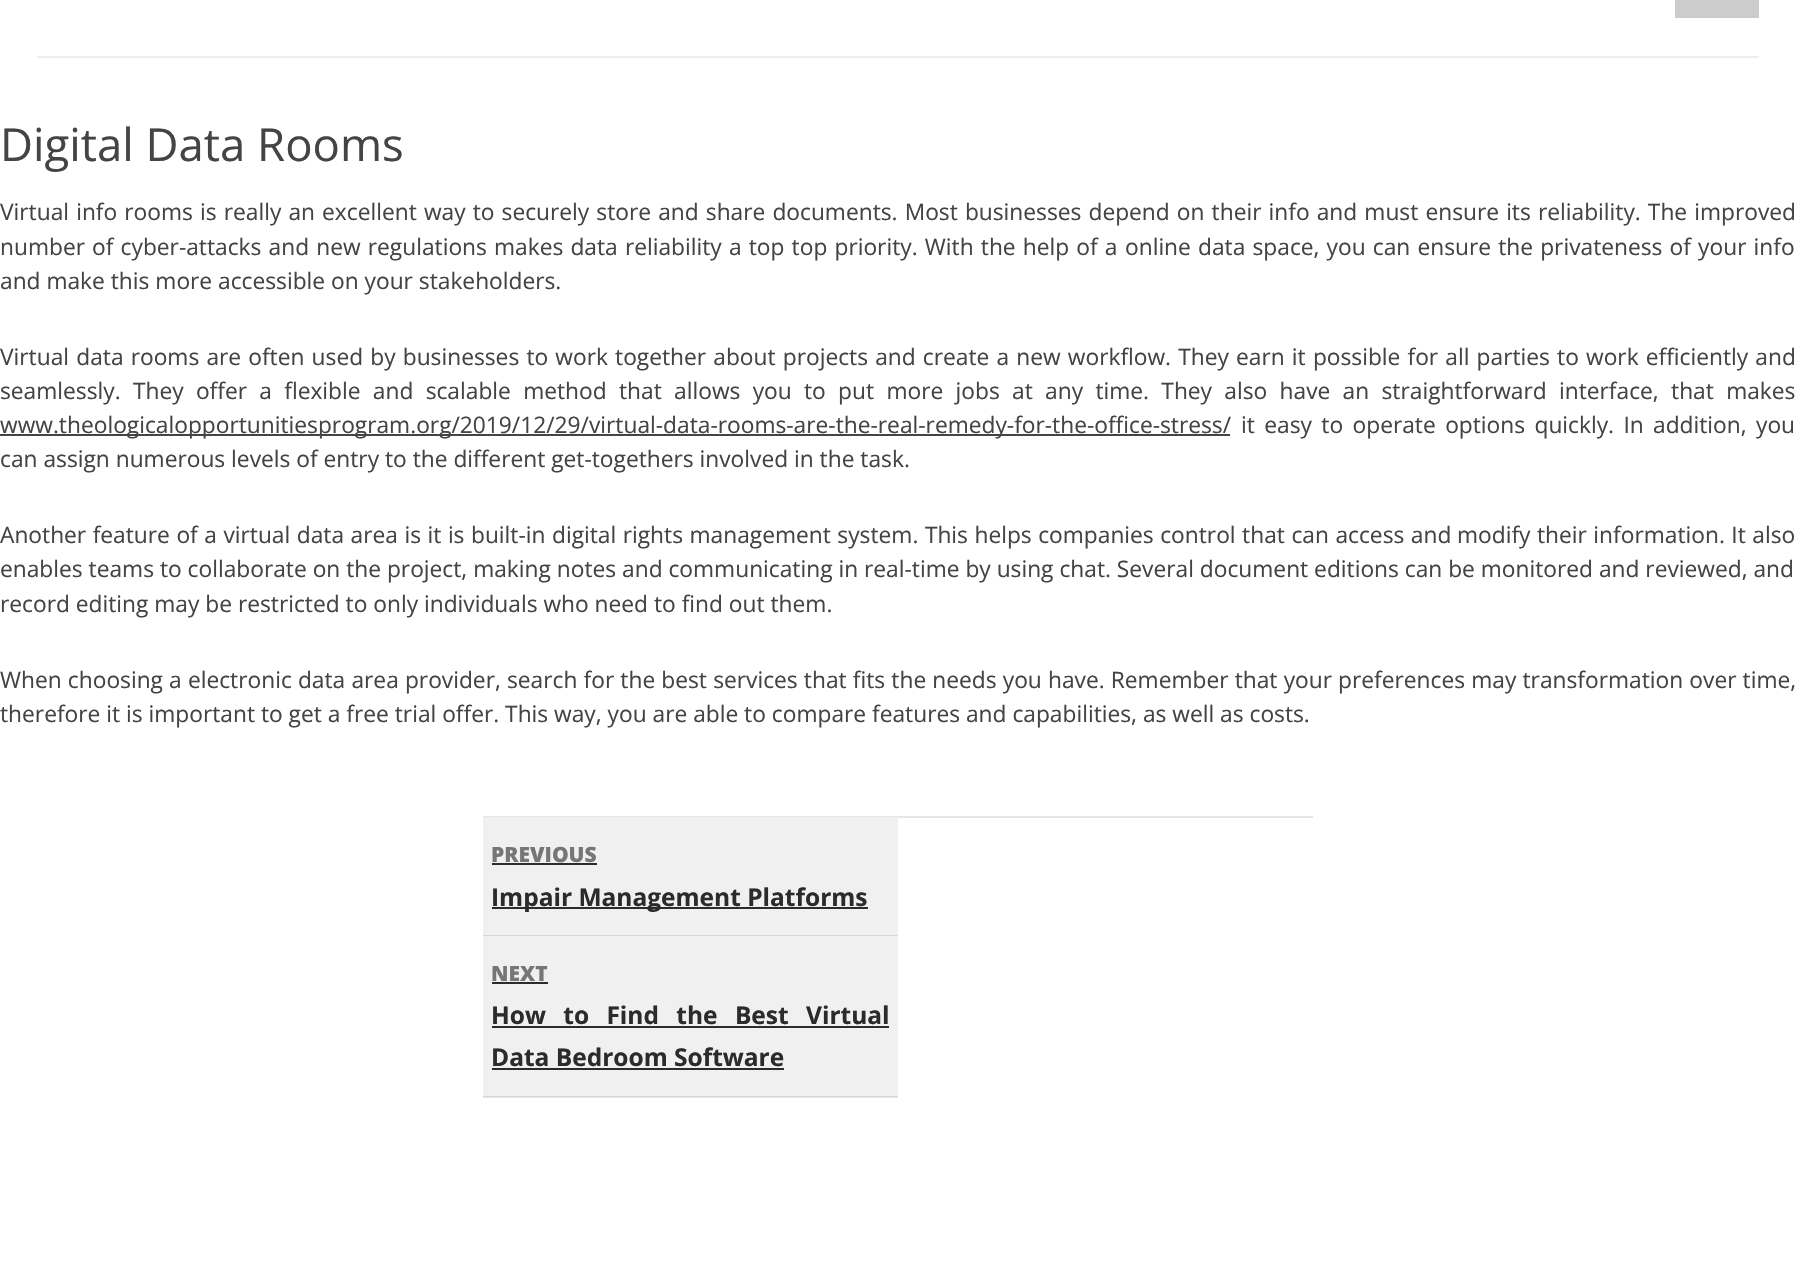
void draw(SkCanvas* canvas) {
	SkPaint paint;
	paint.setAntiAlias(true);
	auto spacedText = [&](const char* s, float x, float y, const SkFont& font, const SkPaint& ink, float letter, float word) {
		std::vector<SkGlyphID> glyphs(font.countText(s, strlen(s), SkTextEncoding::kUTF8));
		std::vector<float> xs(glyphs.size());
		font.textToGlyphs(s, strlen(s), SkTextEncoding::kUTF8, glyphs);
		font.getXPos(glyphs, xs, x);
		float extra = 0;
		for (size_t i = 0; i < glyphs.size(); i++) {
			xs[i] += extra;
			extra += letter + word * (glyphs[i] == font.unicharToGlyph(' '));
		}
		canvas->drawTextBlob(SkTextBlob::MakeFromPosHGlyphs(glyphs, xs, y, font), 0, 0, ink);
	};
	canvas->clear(0xffffffff);
	paint.setColor(0xffe6e6e6);
	canvas->drawRect(SkRect::MakeXYWH(483, 1097, 415, 1), paint);
	paint.setColor(0xffeeeeee);
	canvas->drawRect(SkRect::MakeXYWH(37, 56, 1722, 2), paint);
	paint.setColor(0xffcccccc);
	canvas->drawRect(SkRect::MakeXYWH(1675, 0, 84, 18), paint);
	SkFont f1(fontMgr->matchFamilyStyle("Open Sans", SkFontStyle::Normal()), 45.5);
	f1.setSubpixel(true);
	paint.setColor(0xff444444);
	canvas->drawString("Digital Data Rooms", 0, 161, f1, paint);
	SkFont f2(fontMgr->matchFamilyStyle("Open Sans", SkFontStyle::Normal()), 22.75);
	f2.setSubpixel(true);
	spacedText("Virtual info rooms is really an excellent way to securely store and share documents. Most businesses depend on their info and must ensure its reliability. The improved", 0, 220, f2, paint, 0, 1.2);
	spacedText("number of cyber-attacks and new regulations makes data reliability a top top priority. With the help of a", 0, 255, f2, paint, 0, 1.25);
	spacedText("online data space, you can ensure the privateness of your info", 1125, 255, f2, paint, 0, 1.25);
	canvas->drawString("and make this more accessible on your stakeholders.", 0, 289, f2, paint);
	spacedText("Virtual data rooms are often used by businesses to work together about projects and create a new workflow. They earn it possible for all parties to work efficiently and", 0, 365, f2, paint, 0, 1.25);
	spacedText("seamlessly. They offer a flexible and scalable method that allows you to put more jobs at any time. They also have an straightforward interface, that makes", 0, 399, f2, paint, 0, 6.4);
	canvas->drawRect(SkRect::MakeXYWH(0, 434, 1230, 2), paint);
	canvas->drawString("www.theologicalopportunitiesprogram.org/2019/12/29/virtual-data-rooms-are-the-real-remedy-for-the-office-stress/", 0, 433, f2, paint);
	spacedText("it easy to operate options quickly. In", 1241, 433, f2, paint, 0, 3.5);
	spacedText("addition, you", 1653, 433, f2, paint, 0, 3.5);
	canvas->drawString("can assign numerous levels of entry to the different get-togethers involved in the task.", 0, 467, f2, paint);
	spacedText("Another feature of a virtual data area is it is built-in digital rights management system. This helps companies control that can access and", 0, 543, f2, paint, 0, 0.6);
	spacedText("modify their information. It also", 1457, 543, f2, paint, 0, 0.6);
	canvas->drawString("enables teams to collaborate on the project, making notes and communicating in real-time by using chat. Several document editions can be monitored and reviewed, and", 0, 577, f2, paint);
	canvas->drawString("record editing may be restricted to only individuals who need to find out them.", 0, 612, f2, paint);
	spacedText("When choosing a electronic data area provider, search for the best services that fits the needs you have. Remember that your preferences may transformation over time,", 0, 688, f2, paint, 0, 0.25);
	canvas->drawString("therefore it is important to get a free trial offer. This way, you are able to compare features and capabilities, as well as costs.", 0, 722, f2, paint);
	paint.setColor(0xffe6e6e6);
	canvas->drawRect(SkRect::MakeXYWH(483, 816, 830, 2), paint);
	paint.setColor(0xfff0f0f0);
	canvas->drawRect(SkRect::MakeXYWH(483, 817, 415, 118), paint);
	paint.setColor(0xffd8d8d8);
	canvas->drawRect(SkRect::MakeXYWH(483, 935, 415, 1), paint);
	SkFont f3(fontMgr->matchFamilyStyle("Open Sans", SkFontStyle(800, SkFontStyle::kNormal_Width, SkFontStyle::kUpright_Slant)), 21);
	f3.setSubpixel(true);
	paint.setColor(0xff767676);
	canvas->drawString("PREVIOUS", 491, 862, f3, paint);
	paint.setColor(0xff2b2b2b);
	canvas->drawRect(SkRect::MakeXYWH(492, 863, 105, 2), paint);
	canvas->drawRect(SkRect::MakeXYWH(492, 907, 376, 2), paint);
	SkFont f4(fontMgr->matchFamilyStyle("Open Sans", SkFontStyle::Bold()), 24.5);
	f4.setSubpixel(true);
	canvas->drawString("Impair Management Platforms", 491, 906, f4, paint);
	paint.setColor(0xfff0f0f0);
	canvas->drawRect(SkRect::MakeXYWH(483, 936, 415, 160), paint);
	paint.setColor(0xffd8d8d8);
	canvas->drawRect(SkRect::MakeXYWH(483, 1096, 415, 1), paint);
	paint.setColor(0xff767676);
	canvas->drawString("NEXT", 491, 981, f3, paint);
	paint.setColor(0xff2b2b2b);
	canvas->drawRect(SkRect::MakeXYWH(492, 982, 56, 2), paint);
	spacedText("How to Find the Best Virtual", 491, 1024, f4, paint, 0, 11);
	canvas->drawRect(SkRect::MakeXYWH(492, 1026, 397, 2), paint);
	canvas->drawString("Data Bedroom Software", 491, 1066, f4, paint);
	canvas->drawRect(SkRect::MakeXYWH(492, 1068, 292, 2), paint);
}
